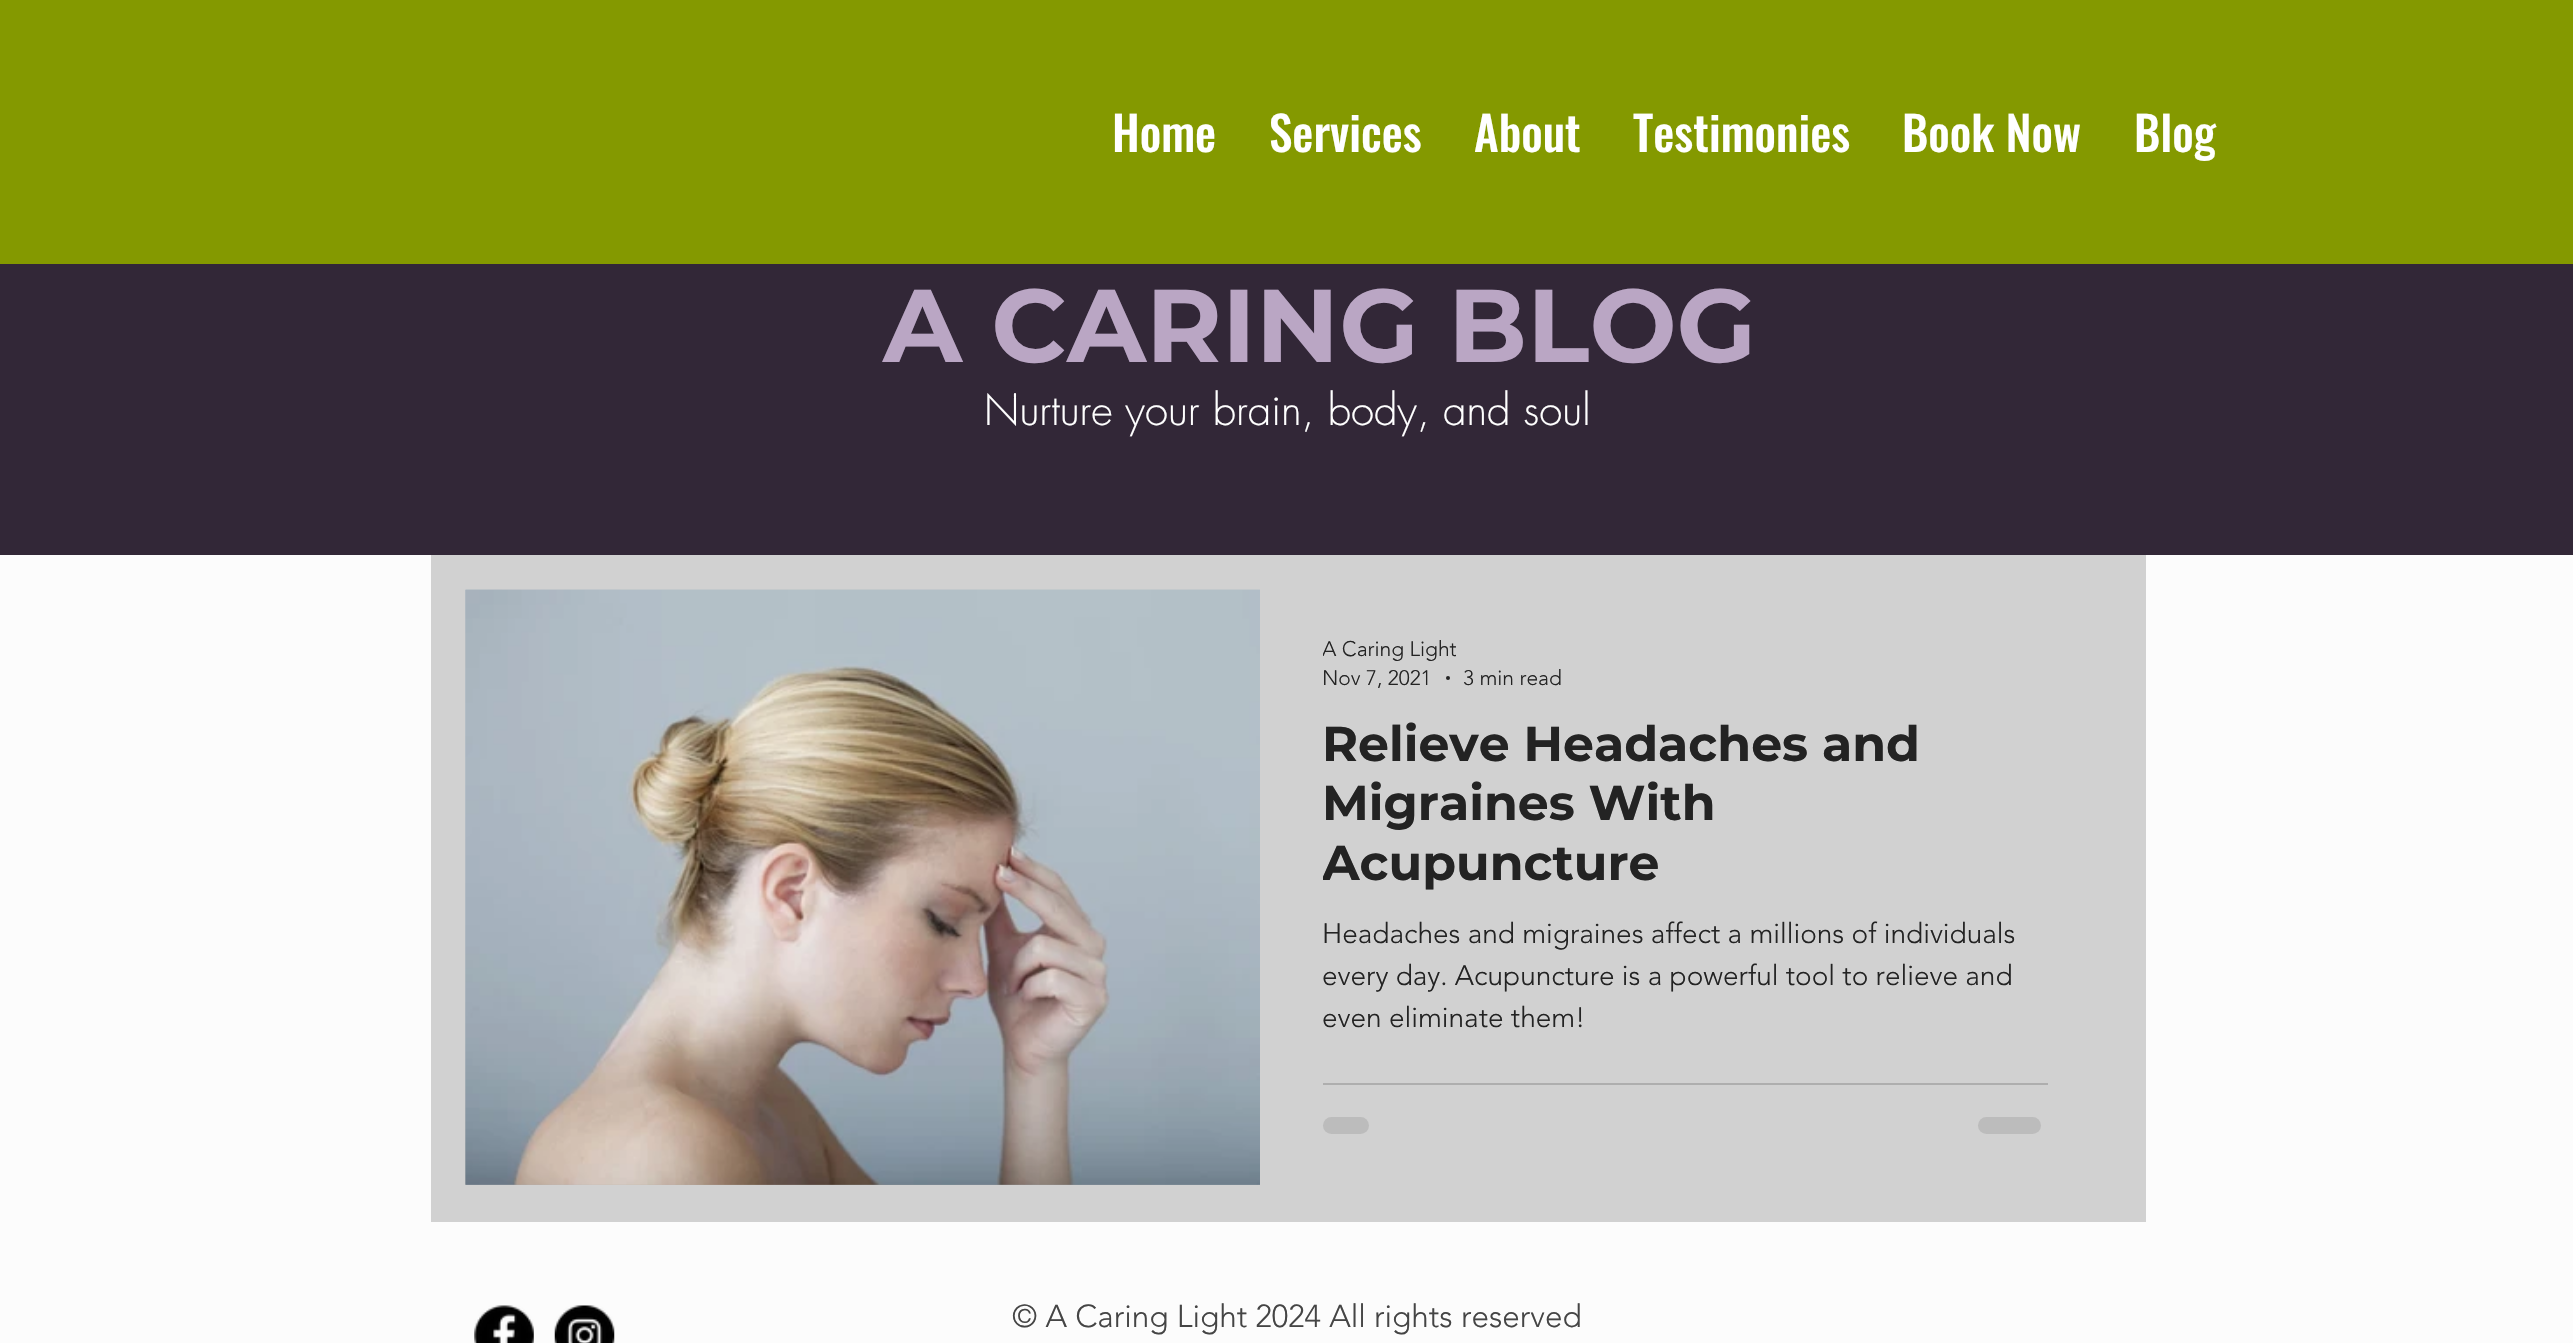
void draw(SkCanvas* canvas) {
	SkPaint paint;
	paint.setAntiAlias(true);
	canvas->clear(0xfffcfcfc);
	paint.setColor(0xff849900);
	canvas->drawRect(SkRect::MakeXYWH(0, 0, 2573, 264), paint);
	SkFont f1(fontMgr->matchFamilyStyle("Oswald", SkFontStyle(500, SkFontStyle::kNormal_Width, SkFontStyle::kUpright_Slant)), 47.25);
	f1.setSubpixel(true);
	paint.setColor(0xffffffff);
	canvas->drawString("Home", 1112, 152, f1, paint);
	canvas->drawString("Services", 1269, 152, f1, paint);
	canvas->drawString("About", 1474, 152, f1, paint);
	canvas->drawString("Testimonies", 1633, 152, f1, paint);
	canvas->drawString("Book Now", 1902, 152, f1, paint);
	canvas->drawString("Blog", 2134, 152, f1, paint);
	paint.setColor(0xff322737);
	canvas->drawRect(SkRect::MakeXYWH(0, 264, 2573, 291), paint);
	SkFont f2(fontMgr->matchFamilyStyle("Montserrat", SkFontStyle::Bold()), 103.25);
	f2.setSubpixel(true);
	paint.setColor(0xffbaa6c4);
	canvas->drawString("A CARING BLOG", 883, 362, f2, paint);
	SkFont f3(fontMgr->matchFamilyStyle("futura", SkFontStyle(300, SkFontStyle::kNormal_Width, SkFontStyle::kUpright_Slant)), 42);
	f3.setSubpixel(true);
	paint.setColor(0xffffffff);
	canvas->drawString("Nurture your brain, body, and soul", 984, 425, f3, paint);
	paint.setColor(0xffd1d1d1);
	canvas->drawRect(SkRect::MakeXYWH(431, 555, 1715, 667), paint);
	canvas->drawImageRect(SkImages::DeferredFromEncodedData(SkData::MakeFromFileName("img1.png")), SkRect::MakeXYWH(465, 589, 795, 596), SkSamplingOptions());
	canvas->drawImageRect(SkImages::DeferredFromEncodedData(SkData::MakeFromFileName("img2.png")), SkRect::MakeXYWH(465, 589, 795, 596), SkSamplingOptions());
	canvas->save();
	canvas->clipRect(SkRect::MakeXYWH(1323, 637, 133, 25));
	SkFont f4(fontMgr->matchFamilyStyle("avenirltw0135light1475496", SkFontStyle(300, SkFontStyle::kNormal_Width, SkFontStyle::kUpright_Slant)), 21);
	f4.setSubpixel(true);
	paint.setColor(0xff232323);
	canvas->drawString("A Caring Light", 1322, 656, f4, paint);
	canvas->restore();
	canvas->drawString("Nov 7, 2021", 1322, 685, f4, paint);
	canvas->drawCircle(1448, 678, 2, paint);
	canvas->drawString("3 min read", 1463, 685, f4, paint);
	SkFont f5(fontMgr->matchFamilyStyle("Montserrat", SkFontStyle::Bold()), 49);
	f5.setSubpixel(true);
	canvas->drawString("Relieve Headaches and", 1322, 761, f5, paint);
	canvas->drawString("Migraines With", 1322, 820, f5, paint);
	canvas->save();
	canvas->clipRect(SkRect::MakeXYWH(1323, 714, 725, 179));
	canvas->drawString("Acupuncture", 1322, 880, f5, paint);
	canvas->restore();
	SkFont f6(fontMgr->matchFamilyStyle("avenirltw0135light1475496", SkFontStyle(300, SkFontStyle::kNormal_Width, SkFontStyle::kUpright_Slant)), 28);
	f6.setSubpixel(true);
	canvas->drawString("Headaches and migraines affect a millions of individuals", 1322, 943, f6, paint);
	canvas->drawString("every day. Acupuncture is a powerful tool to relieve and", 1322, 985, f6, paint);
	canvas->drawString("even eliminate them!", 1322, 1027, f6, paint);
	paint.setColor(0xffaeaeae);
	canvas->drawRect(SkRect::MakeXYWH(1323, 1083, 725, 2), paint);
	paint.setColor(0xffbcbcbc);
	canvas->drawRoundRect(SkRect::MakeXYWH(1323, 1117, 46, 17), 8.5, 8.5, paint);
	canvas->drawRoundRect(SkRect::MakeXYWH(1978, 1117, 63, 17), 8.5, 8.5, paint);
	canvas->drawImageRect(SkImages::DeferredFromEncodedData(SkData::MakeFromFileName("img3.png")), SkRect::MakeXYWH(474, 1305, 60, 38), SkSamplingOptions());
	canvas->drawImageRect(SkImages::DeferredFromEncodedData(SkData::MakeFromFileName("img4.png")), SkRect::MakeXYWH(554, 1305, 61, 38), SkSamplingOptions());
	SkFont f7(fontMgr->matchFamilyStyle("avenirltw0135light1475496", SkFontStyle(300, SkFontStyle::kNormal_Width, SkFontStyle::kUpright_Slant)), 31.5);
	f7.setSubpixel(true);
	paint.setColor(0xff454545);
	canvas->drawString("© A Caring Light 2024 All rights reserved", 1012, 1327, f7, paint);
}
